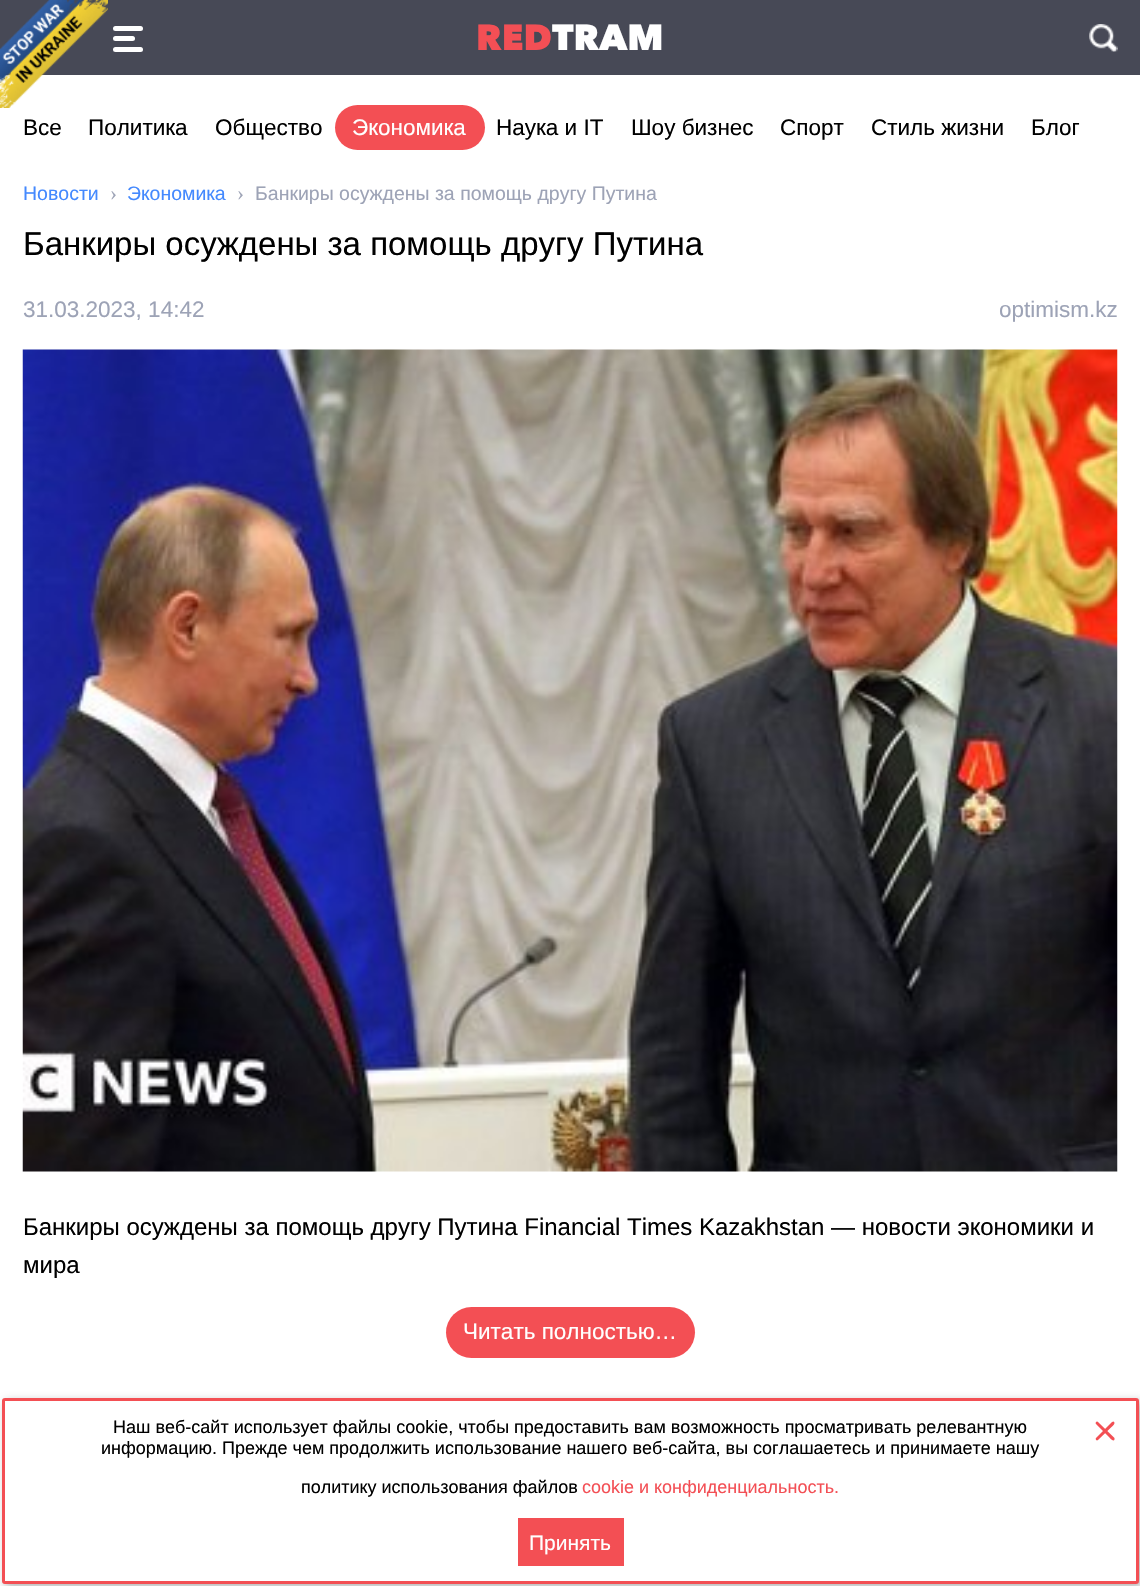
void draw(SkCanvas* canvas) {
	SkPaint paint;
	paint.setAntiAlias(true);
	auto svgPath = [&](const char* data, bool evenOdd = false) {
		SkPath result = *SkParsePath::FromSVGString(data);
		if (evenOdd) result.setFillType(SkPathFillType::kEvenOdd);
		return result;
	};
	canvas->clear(0xffffffff);
	paint.setColor(0xff474956);
	canvas->drawRect(SkRect::MakeXYWH(0, 0, 1140, 75), paint);
	canvas->drawImageRect(SkImages::DeferredFromEncodedData(SkData::MakeFromFileName("img1.png")), SkRect::MakeXYWH(0, 0, 108, 108), SkSamplingOptions());
	paint.setColor(0xffffffff);
	canvas->drawRoundRect(SkRect::MakeXYWH(113, 36, 22, 5), 2.5, 2.5, paint);
	canvas->drawRoundRect(SkRect::MakeXYWH(113, 26, 30, 5), 2.5, 2.5, paint);
	canvas->drawRoundRect(SkRect::MakeXYWH(113, 47, 30, 5), 2.5, 2.5, paint);
	SkFont f1(fontMgr->matchFamilyStyle("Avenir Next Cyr", SkFontStyle(900, SkFontStyle::kNormal_Width, SkFontStyle::kUpright_Slant)), 36);
	f1.setSubpixel(true);
	paint.setColor(0xfff34f55);
	canvas->drawString("RED", 476, 50, f1, paint);
	paint.setColor(0xffffffff);
	canvas->drawString("TRAM", 552, 50, f1, paint);
	canvas->drawImageRect(SkImages::DeferredFromEncodedData(SkData::MakeFromFileName("img2.png")), SkRect::MakeXYWH(1089, 24, 29, 28), SkSamplingOptions());
	SkFont f2(fontMgr->matchFamilyStyle("Liberation Sans", SkFontStyle::Normal()), 22.5);
	f2.setSubpixel(true);
	paint.setColor(0xff000000);
	canvas->drawString("Все", 23, 135, f2, paint);
	canvas->drawString("Политика", 88, 135, f2, paint);
	canvas->drawString("Общество", 215, 135, f2, paint);
	paint.setColor(0xfff34f54);
	canvas->drawRoundRect(SkRect::MakeXYWH(335, 105, 150, 45), 22.5, 22.5, paint);
	paint.setColor(0xffffffff);
	canvas->drawString("Экономика", 352, 135, f2, paint);
	paint.setColor(0xff000000);
	canvas->drawString("Наука и IT", 496, 135, f2, paint);
	canvas->drawString("Шоу бизнес", 631, 135, f2, paint);
	canvas->drawString("Спорт", 780, 135, f2, paint);
	canvas->drawString("Стиль жизни", 871, 135, f2, paint);
	canvas->drawString("Блог", 1031, 135, f2, paint);
	SkFont f3(fontMgr->matchFamilyStyle("Liberation Sans", SkFontStyle::Normal()), 19.5);
	f3.setSubpixel(true);
	paint.setColor(0xff4489fe);
	canvas->drawString("Новости", 23, 200, f3, paint);
	SkFont f4(fontMgr->matchFamilyStyle("Liberation Serif", SkFontStyle::Normal()), 21);
	f4.setSubpixel(true);
	paint.setColor(0xff9da3b6);
	canvas->drawString("›", 110, 200, f4, paint);
	paint.setColor(0xff4489fe);
	canvas->drawString("Экономика", 127, 200, f3, paint);
	paint.setColor(0xff9da3b6);
	canvas->drawString("›", 237, 200, f4, paint);
	canvas->drawString("Банкиры осуждены за помощь другу Путина", 255, 200, f3, paint);
	SkFont f5(fontMgr->matchFamilyStyle("Liberation Sans", SkFontStyle::Normal()), 33);
	f5.setSubpixel(true);
	paint.setColor(0xff000000);
	canvas->drawString("Банкиры осуждены за помощь другу Путина", 23, 255, f5, paint);
	paint.setColor(0xff9da3b6);
	canvas->drawString("31.03.2023, 14:42", 23, 317, f2, paint);
	canvas->drawString("optimism.kz", 999, 317, f2, paint);
	canvas->drawImageRect(SkImages::DeferredFromEncodedData(SkData::MakeFromFileName("img3.png")), SkRect::MakeXYWH(22, 349, 1096, 823), SkSamplingOptions());
	SkFont f6(fontMgr->matchFamilyStyle("Liberation Sans", SkFontStyle::Normal()), 24);
	f6.setSubpixel(true);
	paint.setColor(0xff000000);
	canvas->drawString("Банкиры осуждены за помощь другу Путина Financial Times Kazakhstan — новости экономики и", 23, 1235, f6, paint);
	canvas->drawString("мира", 23, 1273, f6, paint);
	paint.setColor(0xfff34f54);
	canvas->drawRoundRect(SkRect::MakeXYWH(446, 1307, 249, 51), 25.5, 25.5, paint);
	paint.setColor(0xffffffff);
	canvas->drawString("Читать полностью…", 463, 1339, f2, paint);
	paint.setColor(0x4d000000);
	paint.setMaskFilter(SkMaskFilter::MakeBlur(kNormal_SkBlurStyle, 4));
	canvas->drawRoundRect(SkRect::MakeXYWH(5, 1401, 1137, 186), 3, 3, paint);
	paint.setMaskFilter(nullptr);
	paint.setColor(0xffffffff);
	canvas->drawRoundRect(SkRect::MakeXYWH(3.5, 1399.5, 1134, 183), 1.5, 1.5, paint);
	paint.setStroke(true);
	paint.setStrokeWidth(3);
	paint.setColor(0xfff34f54);
	canvas->drawRoundRect(SkRect::MakeXYWH(3.5, 1399.5, 1134, 183), 1.5, 1.5, paint);
	SkFont f7(fontMgr->matchFamilyStyle("Liberation Sans", SkFontStyle::Normal()), 18);
	f7.setSubpixel(true);
	paint.setStroke(false);
	paint.setColor(0xff000000);
	canvas->drawString("Наш веб-сайт использует файлы cookie, чтобы предоставить вам возможность просматривать релевантную", 113, 1433, f7, paint);
	canvas->drawString("информацию. Прежде чем продолжить использование нашего веб-сайта, вы соглашаетесь и принимаете нашу", 101, 1454, f7, paint);
	canvas->drawString("политику использования файлов", 301, 1493, f7, paint);
	paint.setColor(0xfff34f55);
	canvas->drawString("cookie и конфиденциальность.", 582, 1493, f7, paint);
	paint.setColor(0xfff34f54);
	canvas->drawPath(svgPath("M1098 1422L1114.5 1438V1439.5C1113.5 1442.5 1109.5 1437.5 1109.5 1437.5L1096 1424L1095.5 1423C1096 1421.5 1097.5 1421 1098 1422Z"), paint);
	canvas->drawPath(svgPath("M1096 1438L1112 1422L1113.5 1421.5C1116.5 1423 1112 1426.5 1111.5 1427L1098 1440L1097 1440.5C1095.5 1440 1095.5 1438.5 1096 1438Z"), paint);
	canvas->drawRect(SkRect::MakeXYWH(518, 1518, 106, 48), paint);
	SkFont f8(fontMgr->matchFamilyStyle("Liberation Sans", SkFontStyle::Normal()), 21);
	f8.setSubpixel(true);
	paint.setColor(0xffffffff);
	canvas->drawString("Принять", 529, 1550, f8, paint);
}
